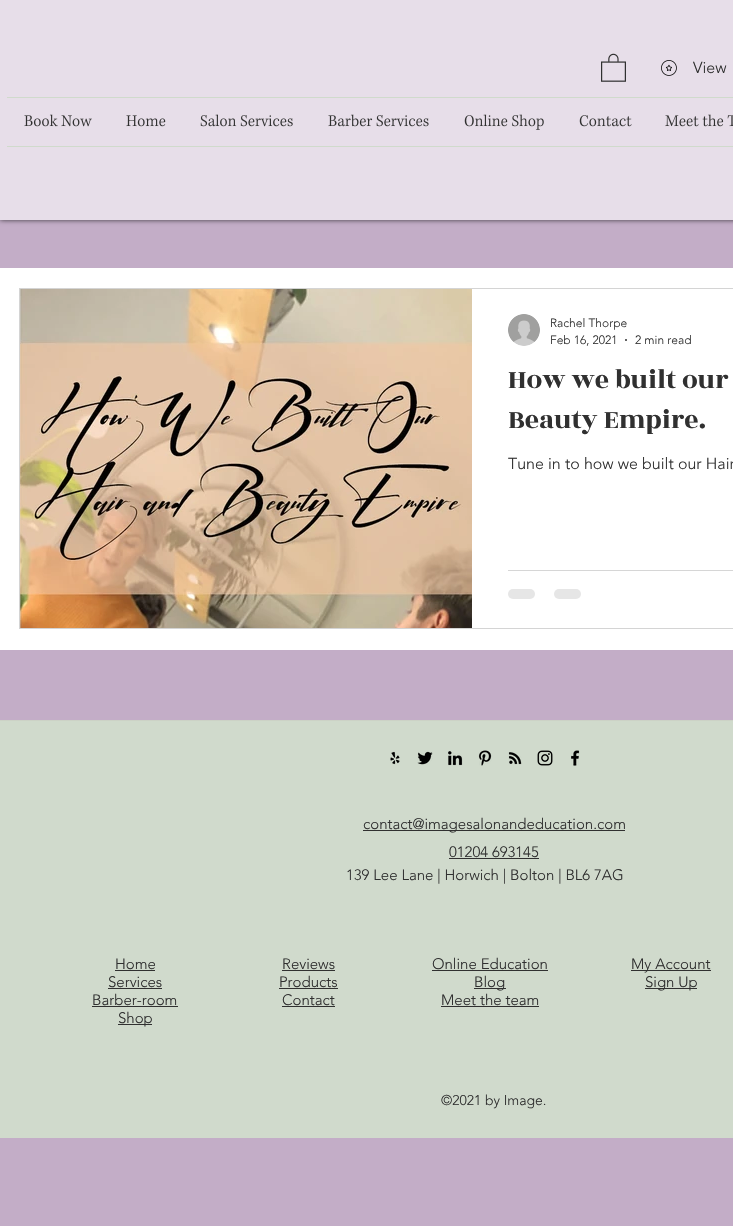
void draw(SkCanvas* canvas) {
	SkPaint paint;
	paint.setAntiAlias(true);
	canvas->clear(0xffc3adc7);
	paint.setColor(0xb3000000);
	paint.setMaskFilter(SkMaskFilter::MakeBlur(kNormal_SkBlurStyle, 2.5));
	canvas->drawRect(SkRect::MakeXYWH(0, 0, 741, 220), paint);
	paint.setMaskFilter(nullptr);
	paint.setColor(0xffe7dee9);
	canvas->drawRect(SkRect::MakeXYWH(0, 0, 733, 220), paint);
	canvas->drawImageRect(SkImages::DeferredFromEncodedData(SkData::MakeFromFileName("img1.png")), SkRect::MakeXYWH(601, 53, 25, 29), SkSamplingOptions());
	canvas->drawImageRect(SkImages::DeferredFromEncodedData(SkData::MakeFromFileName("img2.png")), SkRect::MakeXYWH(661, 60, 16, 16), SkSamplingOptions());
	SkFont f1(fontMgr->matchFamilyStyle("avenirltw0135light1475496", SkFontStyle(300, SkFontStyle::kNormal_Width, SkFontStyle::kUpright_Slant)), 16);
	f1.setSubpixel(true);
	paint.setColor(0xff303030);
	canvas->drawString("View", 693, 73, f1, paint);
	paint.setColor(0xffd0dacc);
	canvas->drawRect(SkRect::MakeXYWH(7, 97, 726, 1), paint);
	canvas->drawRect(SkRect::MakeXYWH(7, 146, 726, 1), paint);
	canvas->drawImageRect(SkImages::DeferredFromEncodedData(SkData::MakeFromFileName("img3.png")), SkRect::MakeXYWH(24, 114, 68, 13), SkSamplingOptions());
	canvas->drawImageRect(SkImages::DeferredFromEncodedData(SkData::MakeFromFileName("img4.png")), SkRect::MakeXYWH(126, 115, 40, 12), SkSamplingOptions());
	canvas->drawImageRect(SkImages::DeferredFromEncodedData(SkData::MakeFromFileName("img5.png")), SkRect::MakeXYWH(200, 114, 93, 13), SkSamplingOptions());
	canvas->drawImageRect(SkImages::DeferredFromEncodedData(SkData::MakeFromFileName("img6.png")), SkRect::MakeXYWH(328, 114, 101, 13), SkSamplingOptions());
	canvas->drawImageRect(SkImages::DeferredFromEncodedData(SkData::MakeFromFileName("img7.png")), SkRect::MakeXYWH(464, 114, 80, 16), SkSamplingOptions());
	canvas->drawImageRect(SkImages::DeferredFromEncodedData(SkData::MakeFromFileName("img8.png")), SkRect::MakeXYWH(579, 115, 53, 12), SkSamplingOptions());
	canvas->drawImageRect(SkImages::DeferredFromEncodedData(SkData::MakeFromFileName("img9.png")), SkRect::MakeXYWH(665, 114, 68, 13), SkSamplingOptions());
	paint.setColor(0xffffffff);
	canvas->drawRect(SkRect::MakeXYWH(0, 268, 733, 382), paint);
	paint.setStroke(true);
	paint.setStrokeWidth(1);
	paint.setColor(0xffd4d4d4);
	canvas->drawRect(SkRect::MakeXYWH(19.5, 288.5, 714, 340), paint);
	canvas->drawImageRect(SkImages::DeferredFromEncodedData(SkData::MakeFromFileName("img10.png")), SkRect::MakeXYWH(20, 289, 452, 339), SkSamplingOptions());
	canvas->drawImageRect(SkImages::DeferredFromEncodedData(SkData::MakeFromFileName("img11.png")), SkRect::MakeXYWH(508, 314, 32, 32), SkSamplingOptions());
	SkFont f2(fontMgr->matchFamilyStyle("avenirltw0135light1475496", SkFontStyle(300, SkFontStyle::kNormal_Width, SkFontStyle::kUpright_Slant)), 12);
	f2.setSubpixel(true);
	paint.setStroke(false);
	paint.setColor(0xff303030);
	canvas->drawString("Rachel Thorpe", 550, 327, f2, paint);
	canvas->drawString("Feb 16, 2021", 550, 344, f2, paint);
	canvas->drawCircle(626, 340, 1, paint);
	canvas->drawString("2 min read", 635, 344, f2, paint);
	SkFont f3(fontMgr->matchFamilyStyle("Rozha One", SkFontStyle::Normal()), 28);
	f3.setSubpixel(true);
	canvas->drawString("How we built our", 508, 388, f3, paint);
	canvas->drawString("Beauty Empire.", 508, 428, f3, paint);
	canvas->drawString("Tune in to how we built our Hair", 508, 469, f1, paint);
	paint.setColor(0xffd6d6d6);
	canvas->drawRect(SkRect::MakeXYWH(508, 570, 225, 1), paint);
	paint.setColor(0xffe6e6e6);
	canvas->drawRoundRect(SkRect::MakeXYWH(508, 589, 27, 10), 5, 5, paint);
	canvas->drawRoundRect(SkRect::MakeXYWH(554, 589, 27, 10), 5, 5, paint);
	paint.setColor(0xffd0dacc);
	canvas->drawRect(SkRect::MakeXYWH(0, 721, 733, 417), paint);
	paint.setColor(0xffccd2c6);
	canvas->drawRect(SkRect::MakeXYWH(0, 720, 733, 1), paint);
	canvas->drawImageRect(SkImages::DeferredFromEncodedData(SkData::MakeFromFileName("img12.png")), SkRect::MakeXYWH(390, 751, 10, 14), SkSamplingOptions());
	canvas->drawImageRect(SkImages::DeferredFromEncodedData(SkData::MakeFromFileName("img13.png")), SkRect::MakeXYWH(417, 751, 16, 14), SkSamplingOptions());
	canvas->drawImageRect(SkImages::DeferredFromEncodedData(SkData::MakeFromFileName("img14.png")), SkRect::MakeXYWH(448, 751, 15, 15), SkSamplingOptions());
	canvas->drawImageRect(SkImages::DeferredFromEncodedData(SkData::MakeFromFileName("img15.png")), SkRect::MakeXYWH(478, 750, 14, 16), SkSamplingOptions());
	canvas->drawImageRect(SkImages::DeferredFromEncodedData(SkData::MakeFromFileName("img16.png")), SkRect::MakeXYWH(508, 752, 14, 13), SkSamplingOptions());
	canvas->drawImageRect(SkImages::DeferredFromEncodedData(SkData::MakeFromFileName("img17.png")), SkRect::MakeXYWH(537, 750, 16, 16), SkSamplingOptions());
	canvas->drawImageRect(SkImages::DeferredFromEncodedData(SkData::MakeFromFileName("img18.png")), SkRect::MakeXYWH(571, 750, 9, 16), SkSamplingOptions());
	paint.setColor(0xff303030);
	canvas->drawRect(SkRect::MakeXYWH(363, 830, 262, 1), paint);
	SkFont f4(fontMgr->matchFamilyStyle("avenirltw0135light1475496", SkFontStyle(300, SkFontStyle::kNormal_Width, SkFontStyle::kUpright_Slant)), 15);
	f4.setSubpixel(true);
	canvas->drawString("contact@imagesalonandeducation.com", 363, 829, f4, paint);
	canvas->drawString("01204 693145", 449, 857, f4, paint);
	canvas->drawRect(SkRect::MakeXYWH(449, 858, 90, 1), paint);
	canvas->drawString("139 Lee Lane | Horwich | Bolton | BL6 7AG", 346, 880, f4, paint);
	canvas->drawString("Home", 115, 969, f4, paint);
	canvas->drawRect(SkRect::MakeXYWH(115, 970, 40, 1), paint);
	canvas->drawString("Services", 108, 987, f4, paint);
	canvas->drawRect(SkRect::MakeXYWH(108, 988, 54, 1), paint);
	canvas->drawString("Barber-room", 92, 1005, f4, paint);
	canvas->drawRect(SkRect::MakeXYWH(92, 1006, 86, 1), paint);
	canvas->drawRect(SkRect::MakeXYWH(118, 1024, 34, 1), paint);
	canvas->drawString("Shop", 118, 1023, f4, paint);
	canvas->drawString("Reviews", 282, 969, f4, paint);
	canvas->drawRect(SkRect::MakeXYWH(282, 970, 53, 1), paint);
	canvas->drawString("Products", 279, 987, f4, paint);
	canvas->drawRect(SkRect::MakeXYWH(279, 988, 59, 1), paint);
	canvas->drawString("Contact", 282, 1005, f4, paint);
	canvas->drawRect(SkRect::MakeXYWH(282, 1006, 53, 1), paint);
	canvas->drawString("Online Education", 432, 969, f4, paint);
	canvas->drawRect(SkRect::MakeXYWH(432, 970, 116, 1), paint);
	canvas->drawRect(SkRect::MakeXYWH(474, 988, 32, 1), paint);
	canvas->drawString("Blog", 474, 987, f4, paint);
	canvas->drawString("Meet the team", 441, 1005, f4, paint);
	canvas->drawRect(SkRect::MakeXYWH(441, 1006, 98, 1), paint);
	canvas->drawRect(SkRect::MakeXYWH(631, 970, 80, 1), paint);
	canvas->drawString("My Account", 631, 969, f4, paint);
	canvas->drawRect(SkRect::MakeXYWH(645, 988, 52, 1), paint);
	canvas->drawString("Sign Up", 645, 987, f4, paint);
	SkFont f5(fontMgr->matchFamilyStyle("avenirltw0135light1475496", SkFontStyle(300, SkFontStyle::kNormal_Width, SkFontStyle::kUpright_Slant)), 14);
	f5.setSubpixel(true);
	canvas->drawString("©2021 by Image.", 441, 1105, f5, paint);
}
